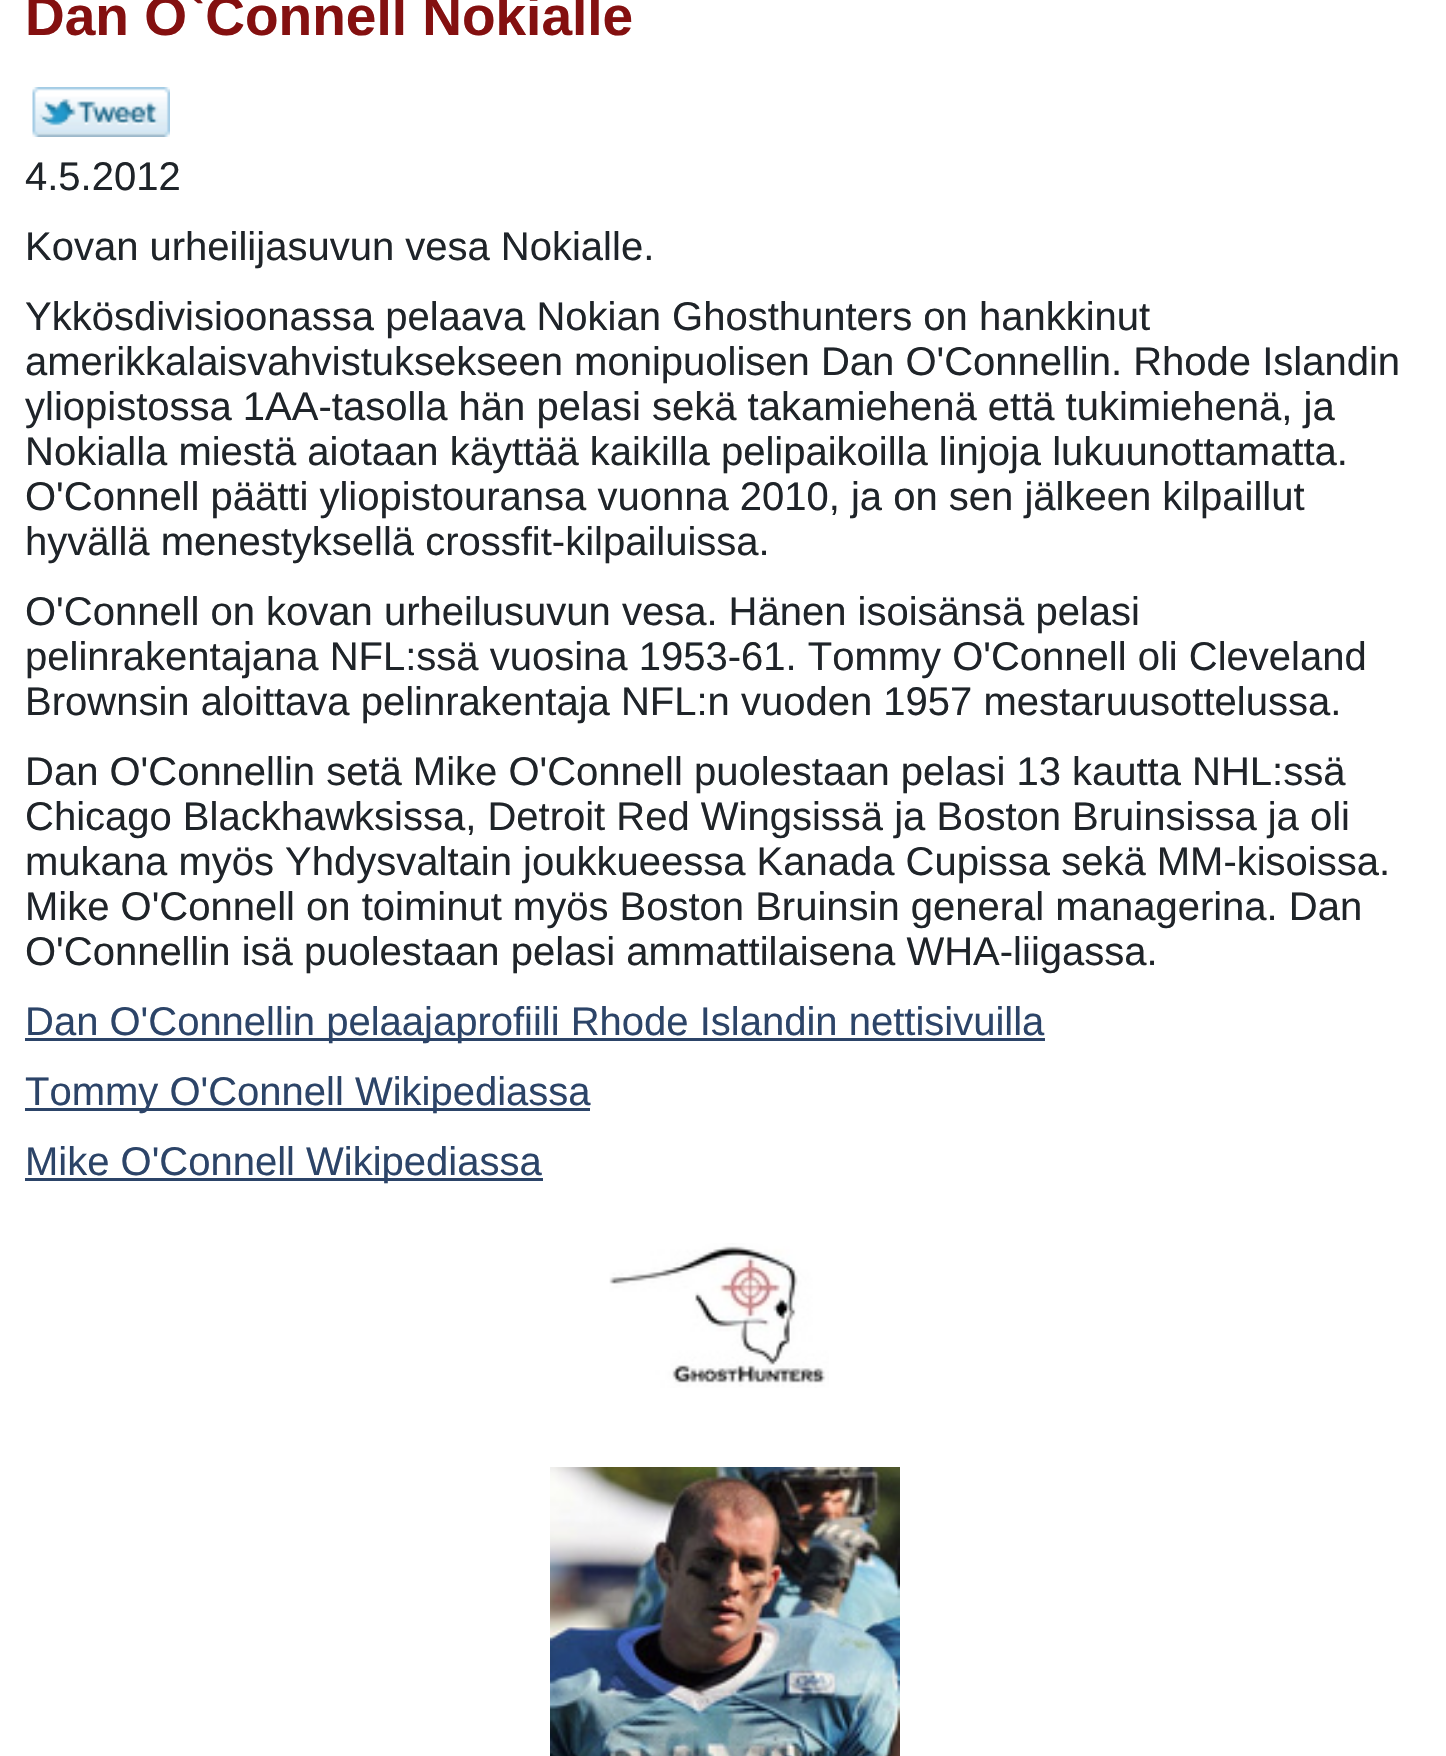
void draw(SkCanvas* canvas) {
	SkPaint paint;
	paint.setAntiAlias(true);
	canvas->clear(0xffffffff);
	SkFont f1(fontMgr->matchFamilyStyle("Liberation Sans", SkFontStyle::Bold()), 55);
	f1.setSubpixel(true);
	paint.setColor(0xff841010);
	canvas->drawString("Dan O`Connell Nokialle", 25, 35, f1, paint);
	canvas->drawImageRect(SkImages::DeferredFromEncodedData(SkData::MakeFromFileName("img1.png")), SkRect::MakeXYWH(32, 87, 138, 50), SkSamplingOptions());
	SkFont f2(fontMgr->matchFamilyStyle("Liberation Sans", SkFontStyle::Normal()), 40);
	f2.setSubpixel(true);
	paint.setColor(0xff1f2429);
	canvas->drawString("4.5.2012", 25, 190, f2, paint);
	canvas->drawString("Kovan urheilijasuvun vesa Nokialle.", 25, 260, f2, paint);
	canvas->drawString("Ykkösdivisioonassa pelaava Nokian Ghosthunters on hankkinut", 25, 330, f2, paint);
	canvas->drawString("amerikkalaisvahvistuksekseen monipuolisen Dan O'Connellin. Rhode Islandin", 25, 375, f2, paint);
	canvas->drawString("yliopistossa 1AA-tasolla hän pelasi sekä takamiehenä että tukimiehenä, ja", 25, 420, f2, paint);
	canvas->drawString("Nokialla miestä aiotaan käyttää kaikilla pelipaikoilla linjoja lukuunottamatta.", 25, 465, f2, paint);
	canvas->drawString("O'Connell päätti yliopistouransa vuonna 2010, ja on sen jälkeen kilpaillut", 25, 510, f2, paint);
	canvas->drawString("hyvällä menestyksellä crossfit-kilpailuissa.", 25, 555, f2, paint);
	canvas->drawString("O'Connell on kovan urheilusuvun vesa. Hänen isoisänsä pelasi", 25, 625, f2, paint);
	canvas->drawString("pelinrakentajana NFL:ssä vuosina 1953-61. Tommy O'Connell oli Cleveland", 25, 670, f2, paint);
	canvas->drawString("Brownsin aloittava pelinrakentaja NFL:n vuoden 1957 mestaruusottelussa.", 25, 715, f2, paint);
	canvas->drawString("Dan O'Connellin setä Mike O'Connell puolestaan pelasi 13 kautta NHL:ssä", 25, 785, f2, paint);
	canvas->drawString("Chicago Blackhawksissa, Detroit Red Wingsissä ja Boston Bruinsissa ja oli", 25, 830, f2, paint);
	canvas->drawString("mukana myös Yhdysvaltain joukkueessa Kanada Cupissa sekä MM-kisoissa.", 25, 875, f2, paint);
	canvas->drawString("Mike O'Connell on toiminut myös Boston Bruinsin general managerina. Dan", 25, 920, f2, paint);
	canvas->drawString("O'Connellin isä puolestaan pelasi ammattilaisena WHA-liigassa.", 25, 965, f2, paint);
	paint.setColor(0xff2c4468);
	canvas->drawRect(SkRect::MakeXYWH(25, 1038, 1020, 3), paint);
	canvas->drawString("Dan O'Connellin pelaajaprofiili Rhode Islandin nettisivuilla", 25, 1035, f2, paint);
	canvas->drawRect(SkRect::MakeXYWH(25, 1108, 565, 3), paint);
	canvas->drawString("Tommy O'Connell Wikipediassa", 25, 1105, f2, paint);
	canvas->drawRect(SkRect::MakeXYWH(25, 1178, 518, 3), paint);
	canvas->drawString("Mike O'Connell Wikipediassa", 25, 1175, f2, paint);
	canvas->drawImageRect(SkImages::DeferredFromEncodedData(SkData::MakeFromFileName("img2.png")), SkRect::MakeXYWH(609, 1243, 220, 145), SkSamplingOptions());
	canvas->drawImageRect(SkImages::DeferredFromEncodedData(SkData::MakeFromFileName("img3.png")), SkRect::MakeXYWH(550, 1467, 350, 289), SkSamplingOptions());
}
